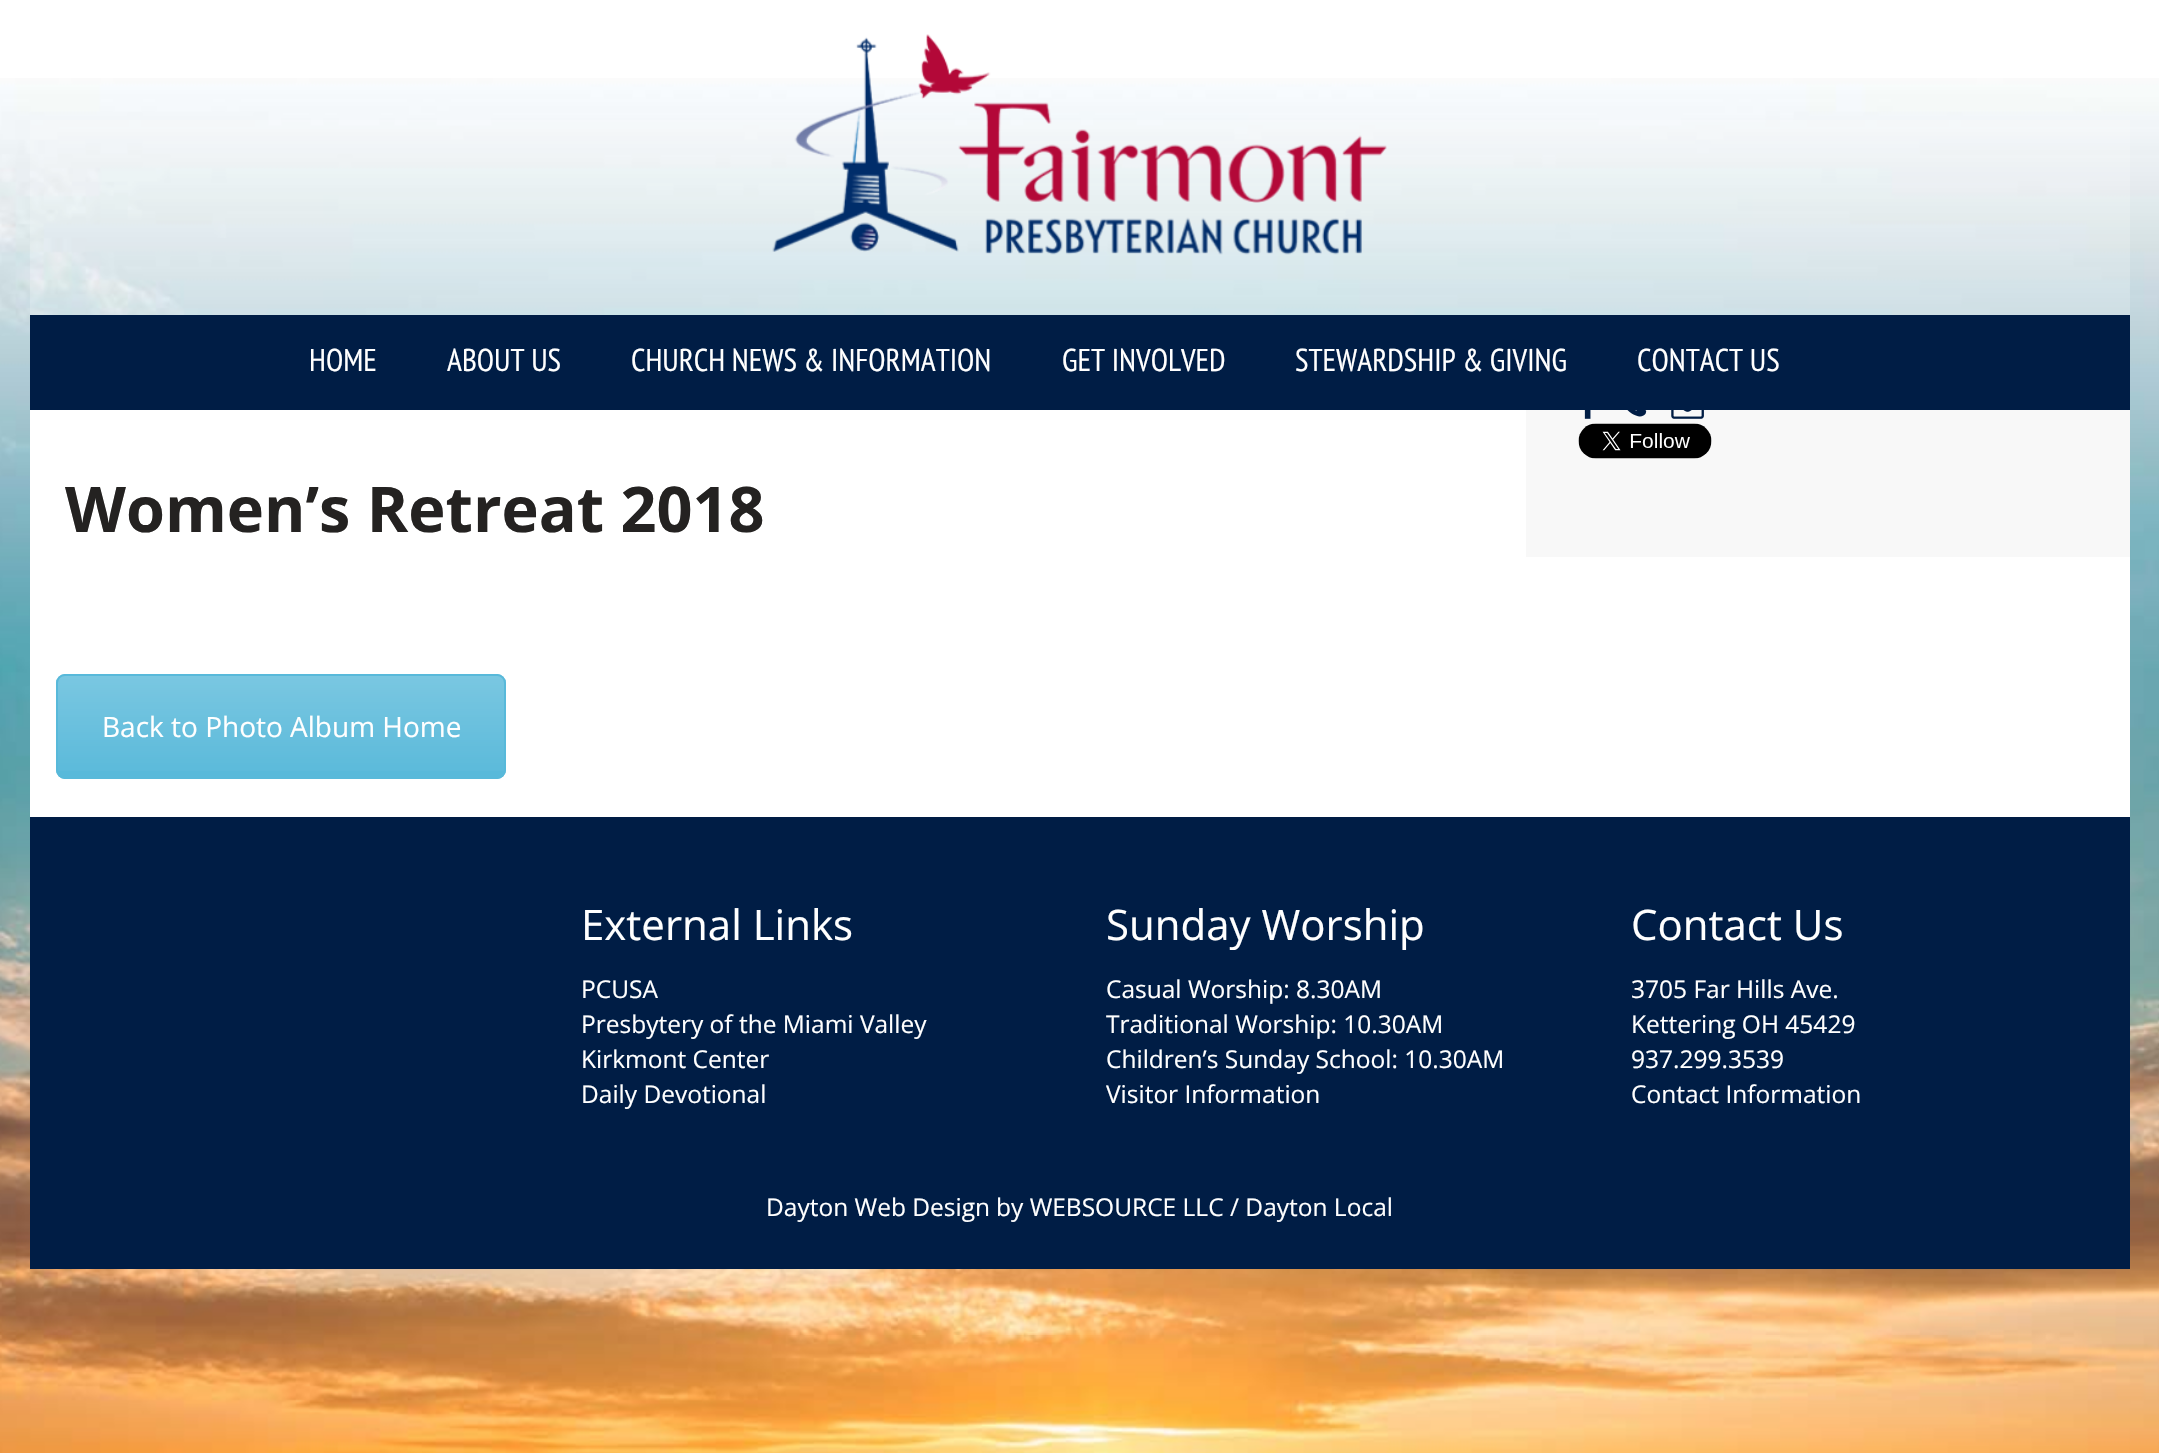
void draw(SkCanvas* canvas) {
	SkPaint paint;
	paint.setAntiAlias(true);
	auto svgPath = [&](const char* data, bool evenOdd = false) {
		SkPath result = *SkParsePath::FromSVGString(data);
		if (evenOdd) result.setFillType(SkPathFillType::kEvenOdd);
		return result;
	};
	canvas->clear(0xffffffff);
	canvas->drawImageRect(SkImages::DeferredFromEncodedData(SkData::MakeFromFileName("img1.png")), SkRect::MakeXYWH(0, 78, 2159, 1375), SkSamplingOptions());
	paint.setColor(0x33ffffff);
	canvas->drawRect(SkRect::MakeXYWH(30, 120, 2100, 195), paint);
	canvas->drawImageRect(SkImages::DeferredFromEncodedData(SkData::MakeFromFileName("img2.png")), SkRect::MakeXYWH(772, 34, 615, 221), SkSamplingOptions());
	paint.setColor(0xff001d45);
	canvas->drawRect(SkRect::MakeXYWH(30, 315, 2100, 95), paint);
	SkFont f1(fontMgr->matchFamilyStyle("PT Sans Narrow", SkFontStyle::Normal()), 31.5);
	f1.setSubpixel(true);
	paint.setColor(0xffffffff);
	canvas->drawString("HOME", 309, 371, f1, paint);
	canvas->drawString("ABOUT US", 447, 371, f1, paint);
	canvas->drawString("CHURCH NEWS & INFORMATION", 631, 371, f1, paint);
	canvas->drawString("GET INVOLVED", 1062, 371, f1, paint);
	canvas->drawString("STEWARDSHIP & GIVING", 1295, 371, f1, paint);
	canvas->drawString("CONTACT US", 1637, 371, f1, paint);
	canvas->drawRect(SkRect::MakeXYWH(30, 410, 2100, 407), paint);
	SkFont f2(fontMgr->matchFamilyStyle("Open Sans", SkFontStyle::Bold()), 63);
	f2.setSubpixel(true);
	paint.setColor(0xff242221);
	canvas->drawString("Women’s Retreat 2018", 65, 532, f2, paint);
	paint.setColor(0xfff8f8f8);
	canvas->drawRect(SkRect::MakeXYWH(1526, 410, 604, 147), paint);
	canvas->drawImageRect(SkImages::DeferredFromEncodedData(SkData::MakeFromFileName("img3.png")), SkRect::MakeXYWH(1584, 410, 7, 9), SkSamplingOptions());
	canvas->drawImageRect(SkImages::DeferredFromEncodedData(SkData::MakeFromFileName("img4.png")), SkRect::MakeXYWH(1627, 410, 20, 7), SkSamplingOptions());
	canvas->drawImageRect(SkImages::DeferredFromEncodedData(SkData::MakeFromFileName("img5.png")), SkRect::MakeXYWH(1671, 410, 33, 9), SkSamplingOptions());
	canvas->drawImageRect(SkImages::DeferredFromEncodedData(SkData::MakeFromFileName("img6.png")), SkRect::MakeXYWH(1578, 423, 134, 36), SkSamplingOptions());
	paint.setColor(0xff58b9da);
	canvas->drawRoundRect(SkRect::MakeXYWH(56, 674, 450, 105), 9, 9, paint);
	canvas->save();
	canvas->clipPath(svgPath("M65 674H497C502 674 506 678 506 683V770C506 775 502 779 497 779H65C60 779 56 775 56 770V683C56 678 60 674 65 674Z"), true);
	{
		const SkColor colors[] = {0x33ffffff, 0x03ffffff};
		const float stops[] = {0, 1};
		const SkPoint ends[] = {{281, 676}, {281, 777}};
		paint.setShader(SkGradientShader::MakeLinear(ends, colors, stops, 2, SkTileMode::kClamp));
		paint.setAlpha(255);
	}
	canvas->drawRect(SkRect::MakeXYWH(56, 676, 450, 95), paint);
	canvas->restore();
	paint.setStroke(true);
	paint.setStrokeWidth(2);
	paint.setShader(nullptr);
	paint.setColor(0xff58b9da);
	canvas->drawRoundRect(SkRect::MakeXYWH(57, 675, 448, 103), 8, 8, paint);
	SkFont f3(fontMgr->matchFamilyStyle("Open Sans", SkFontStyle::Normal()), 28);
	f3.setSubpixel(true);
	paint.setStroke(false);
	paint.setColor(0xffffffff);
	canvas->drawString("Back to Photo Album Home", 102, 737, f3, paint);
	paint.setColor(0xff001d45);
	canvas->drawRect(SkRect::MakeXYWH(30, 817, 2100, 452), paint);
	SkFont f4(fontMgr->matchFamilyStyle("Open Sans", SkFontStyle::Normal()), 42);
	f4.setSubpixel(true);
	paint.setColor(0xffffffff);
	canvas->drawString("External Links", 581, 940, f4, paint);
	SkFont f5(fontMgr->matchFamilyStyle("Open Sans", SkFontStyle::Normal()), 24.5);
	f5.setSubpixel(true);
	canvas->drawString("PCUSA", 581, 998, f5, paint);
	canvas->drawString("Presbytery of the Miami Valley", 581, 1033, f5, paint);
	canvas->drawString("Kirkmont Center", 581, 1068, f5, paint);
	canvas->drawString("Daily Devotional", 581, 1103, f5, paint);
	canvas->drawString("Sunday Worship", 1106, 940, f4, paint);
	canvas->drawString("Casual Worship: 8.30AM", 1106, 998, f5, paint);
	canvas->drawString("Traditional Worship: 10.30AM", 1106, 1033, f5, paint);
	canvas->drawString("Children’s Sunday School: 10.30AM", 1106, 1068, f5, paint);
	canvas->drawString("Visitor Information", 1106, 1103, f5, paint);
	canvas->drawString("Contact Us", 1631, 940, f4, paint);
	canvas->drawString("3705 Far Hills Ave.", 1631, 998, f5, paint);
	canvas->drawString("Kettering OH 45429", 1631, 1033, f5, paint);
	canvas->drawString("937.299.3539", 1631, 1068, f5, paint);
	canvas->drawString("Contact Information", 1631, 1103, f5, paint);
	canvas->drawString("Dayton Web Design", 766, 1216, f5, paint);
	canvas->drawString("by WEBSOURCE LLC", 996, 1216, f5, paint);
	canvas->drawString("/ Dayton Local", 1230, 1216, f5, paint);
}
